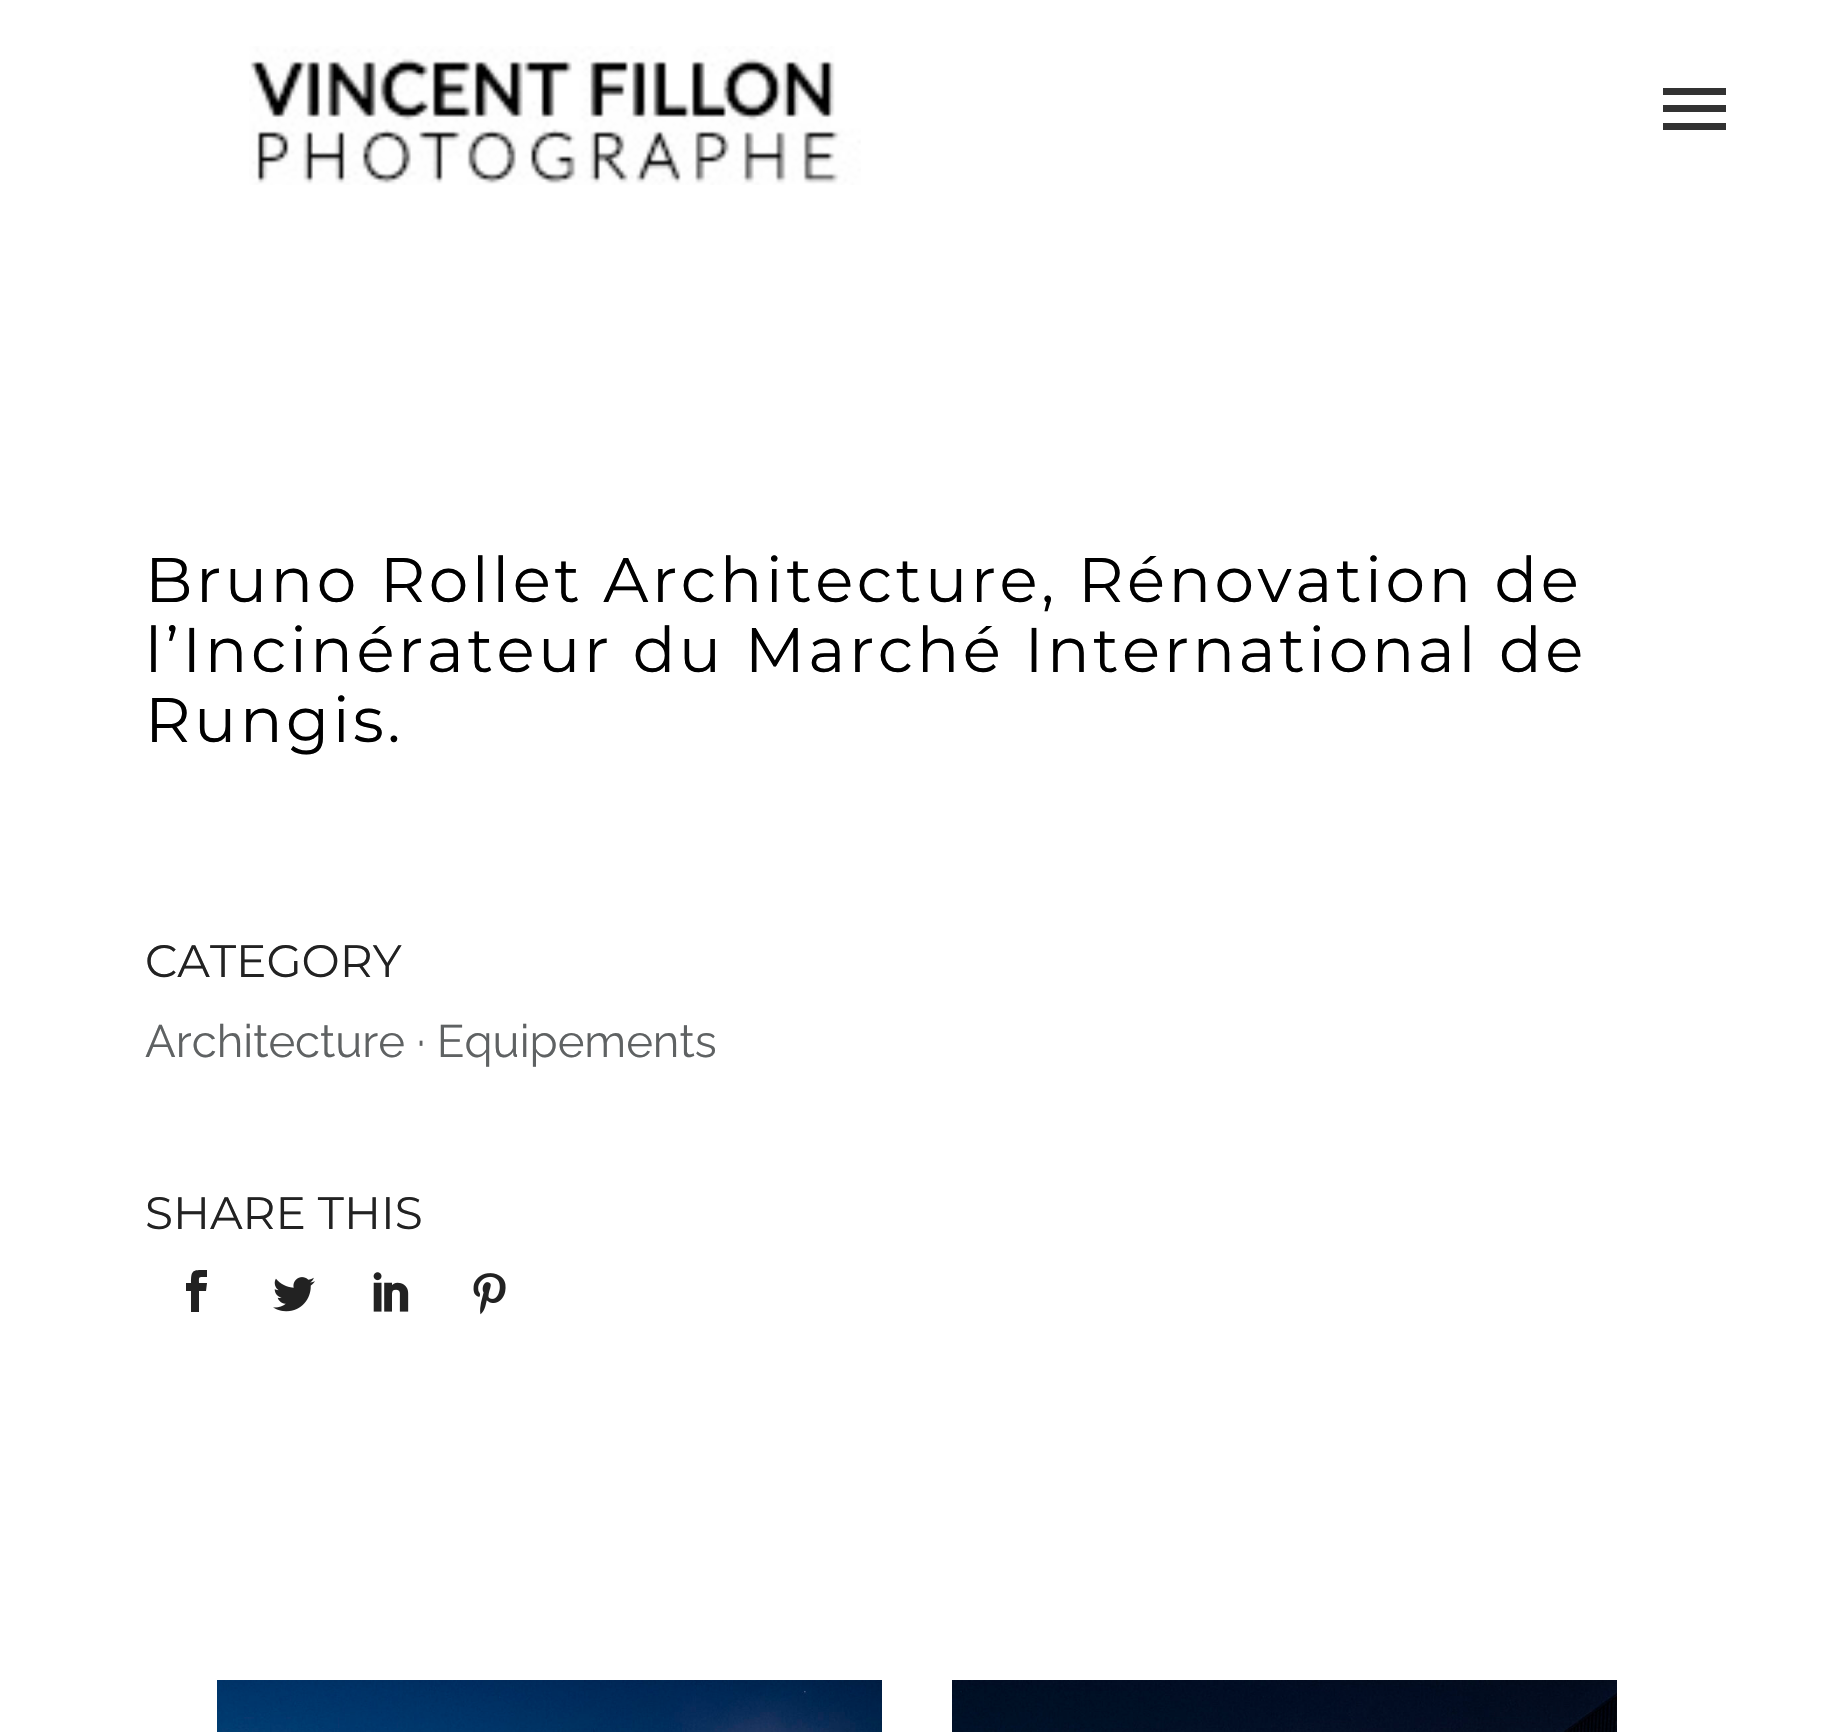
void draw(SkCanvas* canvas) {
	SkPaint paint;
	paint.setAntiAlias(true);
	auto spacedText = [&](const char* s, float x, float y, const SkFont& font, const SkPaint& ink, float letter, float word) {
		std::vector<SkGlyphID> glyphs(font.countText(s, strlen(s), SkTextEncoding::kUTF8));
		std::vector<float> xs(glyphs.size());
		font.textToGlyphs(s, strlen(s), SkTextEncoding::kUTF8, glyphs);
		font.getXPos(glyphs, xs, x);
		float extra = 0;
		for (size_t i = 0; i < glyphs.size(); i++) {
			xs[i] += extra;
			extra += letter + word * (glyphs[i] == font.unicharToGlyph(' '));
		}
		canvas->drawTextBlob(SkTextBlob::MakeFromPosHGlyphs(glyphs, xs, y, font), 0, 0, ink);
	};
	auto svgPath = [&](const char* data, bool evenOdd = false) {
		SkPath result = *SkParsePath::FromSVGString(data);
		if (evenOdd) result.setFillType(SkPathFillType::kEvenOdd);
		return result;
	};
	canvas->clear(0xffffffff);
	canvas->drawImageRect(SkImages::DeferredFromEncodedData(SkData::MakeFromFileName("img1.png")), SkRect::MakeXYWH(249, 46, 612, 139), SkSamplingOptions());
	paint.setColor(0xff323232);
	canvas->drawRect(SkRect::MakeXYWH(1663, 88, 63, 7), paint);
	canvas->drawRect(SkRect::MakeXYWH(1663, 105, 63, 7), paint);
	canvas->drawRect(SkRect::MakeXYWH(1663, 123, 63, 7), paint);
	SkFont f1(fontMgr->matchFamilyStyle("Montserrat", SkFontStyle::Normal()), 63);
	f1.setSubpixel(true);
	paint.setColor(0xff000000);
	spacedText("Bruno Rollet Architecture, Rénovation de", 145, 602, f1, paint, 3.5, 0);
	spacedText("l’Incinérateur du Marché International de", 145, 672, f1, paint, 3.5, 0);
	spacedText("Rungis.", 145, 742, f1, paint, 3.5, 0);
	SkFont f2(fontMgr->matchFamilyStyle("Montserrat", SkFontStyle::Normal()), 45.5);
	f2.setSubpixel(true);
	paint.setColor(0xff222222);
	canvas->drawString("CATEGORY", 145, 977, f2, paint);
	SkFont f3(fontMgr->matchFamilyStyle("Raleway", SkFontStyle(100, SkFontStyle::kNormal_Width, SkFontStyle::kUpright_Slant)), 45.5);
	f3.setSubpixel(true);
	paint.setColor(0xff5f6263);
	canvas->drawString("Architecture · Equipements", 145, 1057, f3, paint);
	paint.setColor(0xff222222);
	canvas->drawString("SHARE THIS", 145, 1229, f2, paint);
	canvas->drawPath(svgPath("M191 1312H199V1291H206L207 1283H199C199 1276 198 1277 207 1277V1270C193 1270 191 1269 191 1283H186V1291H191Z"), paint);
	canvas->drawImageRect(SkImages::DeferredFromEncodedData(SkData::MakeFromFileName("img2.png")), SkRect::MakeXYWH(273, 1277, 42, 35), SkSamplingOptions());
	canvas->drawImageRect(SkImages::DeferredFromEncodedData(SkData::MakeFromFileName("img3.png")), SkRect::MakeXYWH(373, 1272, 36, 40), SkSamplingOptions());
	canvas->drawImageRect(SkImages::DeferredFromEncodedData(SkData::MakeFromFileName("img4.png")), SkRect::MakeXYWH(473, 1273, 33, 42), SkSamplingOptions());
	canvas->drawImageRect(SkImages::DeferredFromEncodedData(SkData::MakeFromFileName("img5.png")), SkRect::MakeXYWH(217, 1680, 665, 52), SkSamplingOptions());
	canvas->drawImageRect(SkImages::DeferredFromEncodedData(SkData::MakeFromFileName("img6.png")), SkRect::MakeXYWH(952, 1680, 665, 52), SkSamplingOptions());
}
